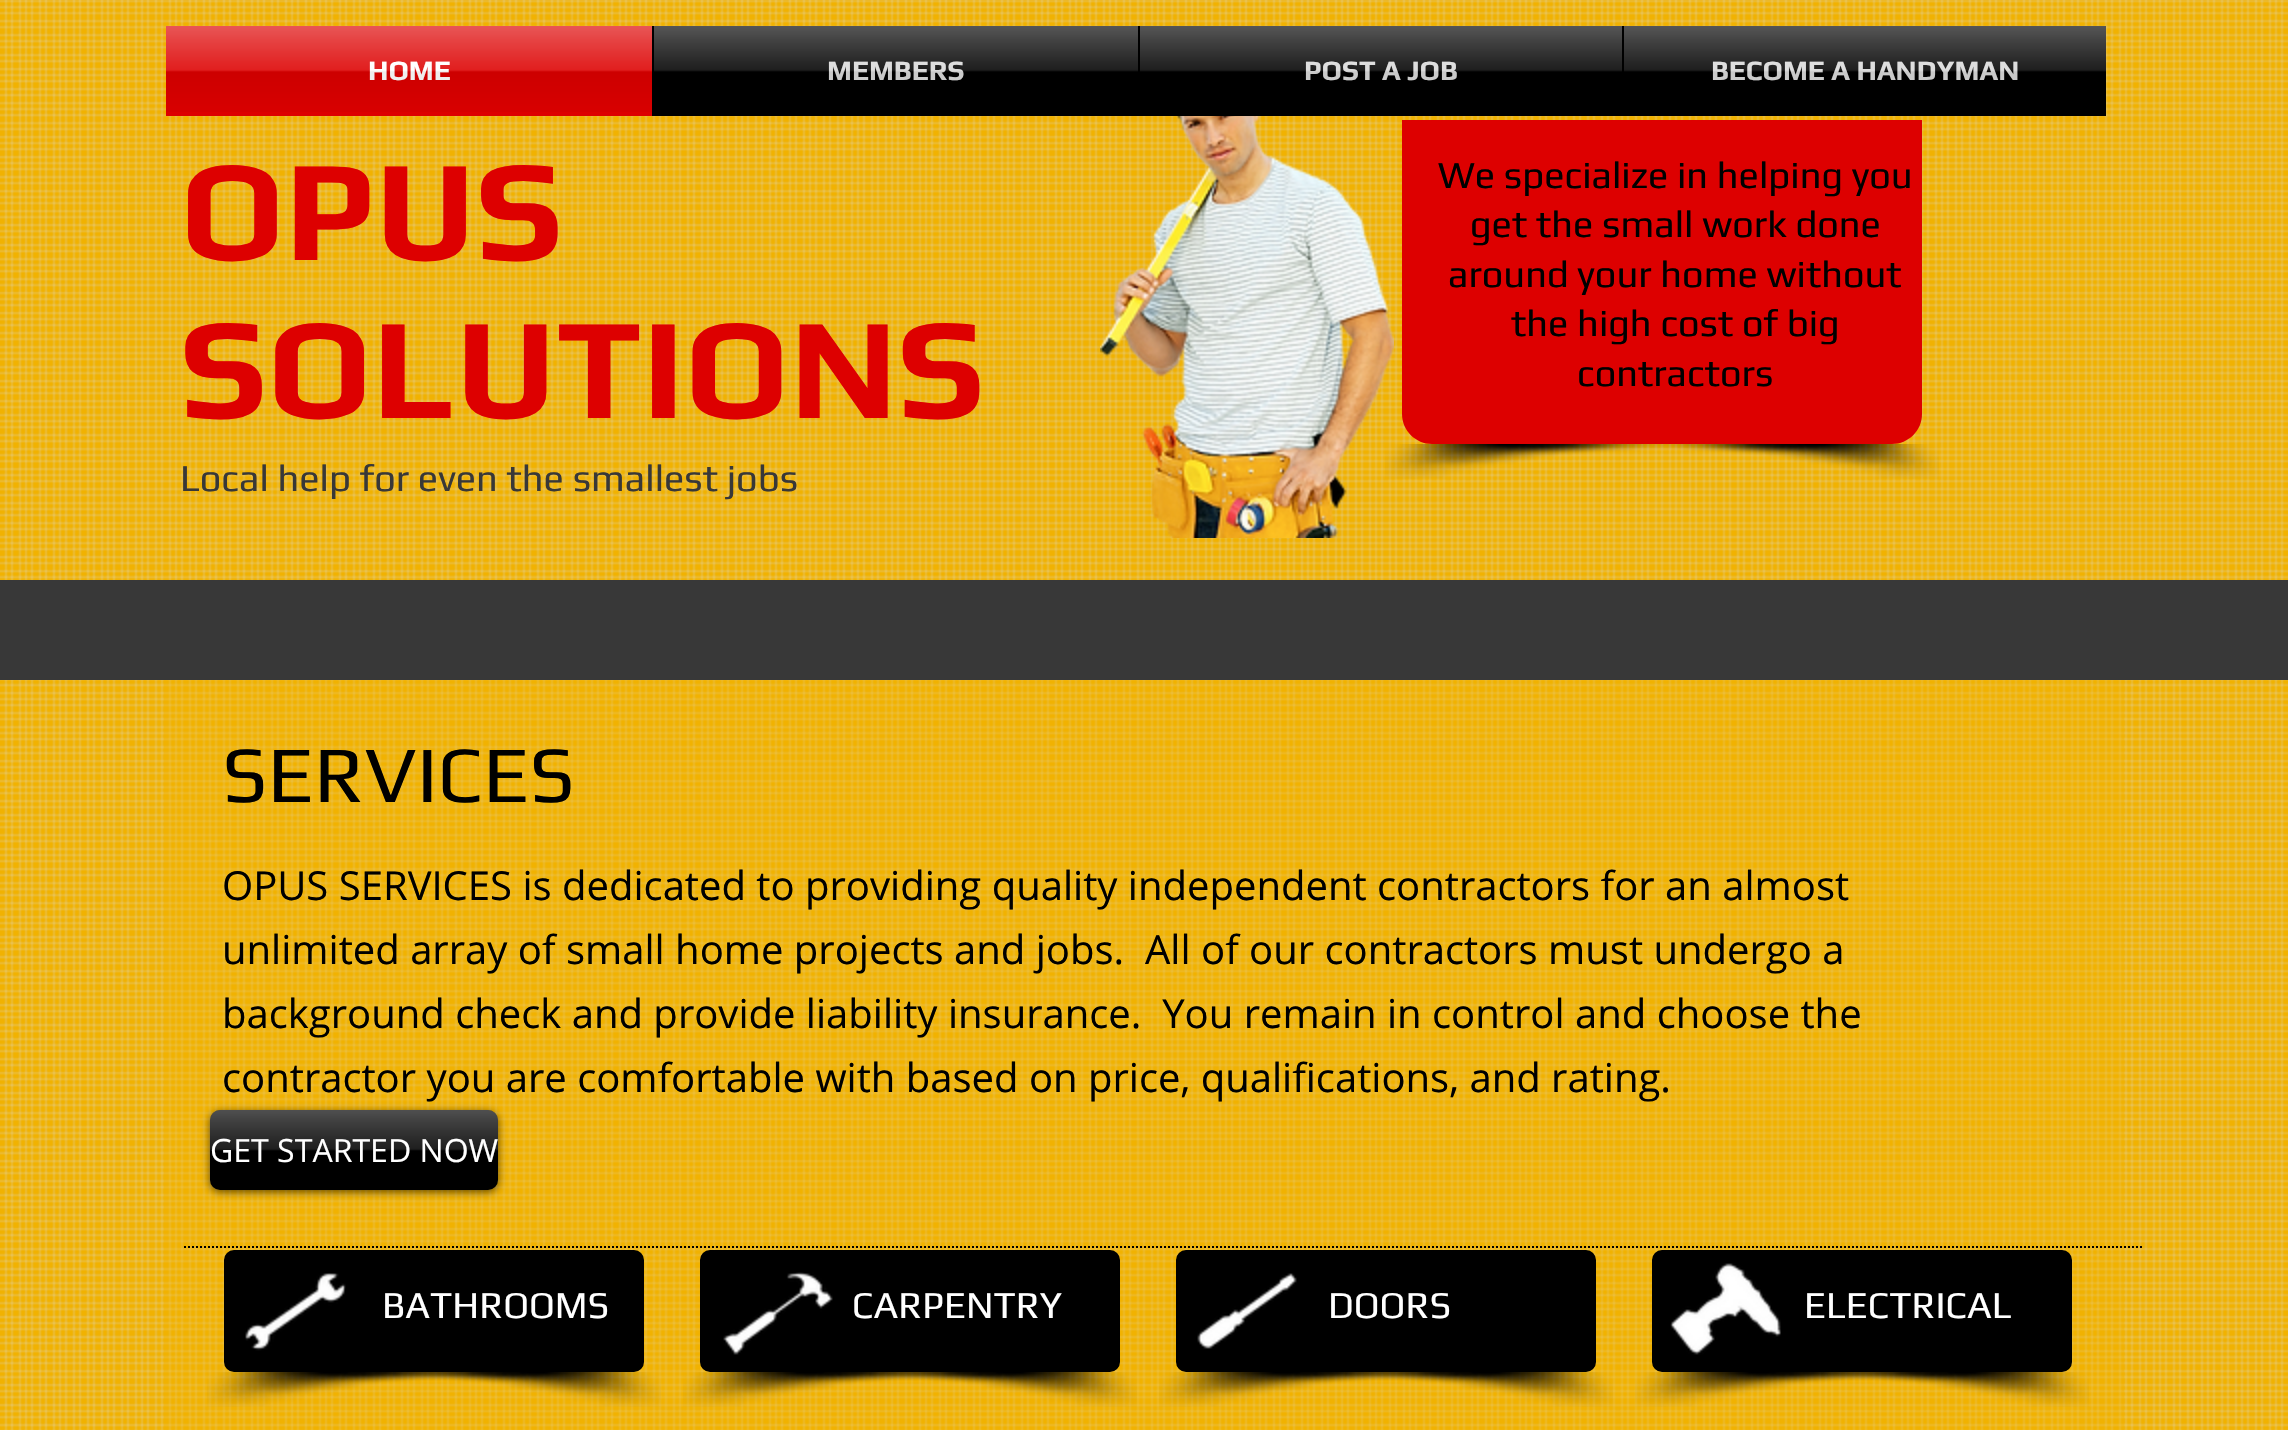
void draw(SkCanvas* canvas) {
	SkPaint paint;
	paint.setAntiAlias(true);
	auto svgPath = [&](const char* data, bool evenOdd = false) {
		SkPath result = *SkParsePath::FromSVGString(data);
		if (evenOdd) result.setFillType(SkPathFillType::kEvenOdd);
		return result;
	};
	canvas->clear(0xfff1b201);
	canvas->drawImageRect(SkImages::DeferredFromEncodedData(SkData::MakeFromFileName("img1.png")), SkRect::MakeXYWH(0, 0, 2288, 1430), SkSamplingOptions());
	paint.setColor(0xffdd0000);
	canvas->drawRect(SkRect::MakeXYWH(166, 26, 486, 90), paint);
	SkFont f1(fontMgr->matchFamilyStyle("Play", SkFontStyle::Bold()), 28);
	f1.setSubpixel(true);
	paint.setColor(0xffffffff);
	canvas->drawString("HOME", 368, 80, f1, paint);
	canvas->drawImageRect(SkImages::DeferredFromEncodedData(SkData::MakeFromFileName("img2.png")), SkRect::MakeXYWH(166, 26, 486, 86), SkSamplingOptions());
	paint.setColor(0xff000000);
	canvas->drawRect(SkRect::MakeXYWH(652, 26, 1454, 90), paint);
	paint.setColor(0xffd9d9d9);
	canvas->drawString("MEMBERS", 827, 80, f1, paint);
	canvas->drawImageRect(SkImages::DeferredFromEncodedData(SkData::MakeFromFileName("img3.png")), SkRect::MakeXYWH(654, 26, 484, 54), SkSamplingOptions());
	canvas->drawString("POST A JOB", 1304, 80, f1, paint);
	canvas->drawImageRect(SkImages::DeferredFromEncodedData(SkData::MakeFromFileName("img4.png")), SkRect::MakeXYWH(1140, 26, 482, 54), SkSamplingOptions());
	canvas->drawString("BECOME A HANDYMAN", 1711, 80, f1, paint);
	canvas->drawImageRect(SkImages::DeferredFromEncodedData(SkData::MakeFromFileName("img5.png")), SkRect::MakeXYWH(1624, 26, 482, 54), SkSamplingOptions());
	SkFont f2(fontMgr->matchFamilyStyle("Play", SkFontStyle::Bold()), 144);
	f2.setSubpixel(true);
	paint.setColor(0xffdd0000);
	canvas->drawString("OPUS", 180, 260, f2, paint);
	canvas->drawString("SOLUTIONS", 180, 418, f2, paint);
	canvas->drawImageRect(SkImages::DeferredFromEncodedData(SkData::MakeFromFileName("img6.png")), SkRect::MakeXYWH(1100, 116, 294, 422), SkSamplingOptions());
	canvas->drawPath(svgPath("M1402 120H1922V414C1922 430.5 1908.5 444 1892 444H1432C1415.5 444 1402 430.5 1402 414Z"), paint);
	SkFont f3(fontMgr->matchFamilyStyle("Play", SkFontStyle::Normal()), 38);
	f3.setSubpixel(true);
	paint.setColor(0xff000000);
	canvas->drawString("We specialize in helping you", 1438, 188, f3, paint);
	canvas->drawString("get the small work done", 1470, 237, f3, paint);
	canvas->drawString("around your home without", 1448, 287, f3, paint);
	canvas->drawString("the high cost of big", 1511, 336, f3, paint);
	canvas->drawString("contractors", 1577, 386, f3, paint);
	canvas->drawImageRect(SkImages::DeferredFromEncodedData(SkData::MakeFromFileName("img7.png")), SkRect::MakeXYWH(1385, 444, 307, 35), SkSamplingOptions());
	canvas->drawImageRect(SkImages::DeferredFromEncodedData(SkData::MakeFromFileName("img8.png")), SkRect::MakeXYWH(1632, 444, 307, 35), SkSamplingOptions());
	paint.setColor(0xff383838);
	canvas->drawString("Local help for even the smallest jobs", 180, 491, f3, paint);
	canvas->drawRect(SkRect::MakeXYWH(0, 580, 2288, 100), paint);
	paint.setColor(0x4df1b201);
	canvas->drawRect(SkRect::MakeXYWH(164, 680, 1960, 750), paint);
	SkFont f4(fontMgr->matchFamilyStyle("Play", SkFontStyle::Normal()), 80);
	f4.setSubpixel(true);
	paint.setColor(0xff000000);
	canvas->drawString("SERVICES", 222, 802, f4, paint);
	SkFont f5(fontMgr->matchFamilyStyle("Open Sans", SkFontStyle::Normal()), 40);
	f5.setSubpixel(true);
	canvas->drawString("OPUS SERVICES is dedicated to providing quality independent contractors for an almost", 222, 900, f5, paint);
	canvas->drawString("unlimited array of small home projects and jobs.  All of our contractors must undergo a", 222, 964, f5, paint);
	canvas->drawString("background check and provide liability insurance.  You remain in control and choose the", 222, 1028, f5, paint);
	canvas->drawString("contractor you are comfortable with based on price, qualifications, and rating.", 222, 1092, f5, paint);
	paint.setColor(0x99000000);
	paint.setMaskFilter(SkMaskFilter::MakeBlur(kNormal_SkBlurStyle, 4));
	canvas->drawRoundRect(SkRect::MakeXYWH(210, 1112, 288, 80), 10, 10, paint);
	paint.setMaskFilter(nullptr);
	paint.setColor(0xff000000);
	canvas->drawRoundRect(SkRect::MakeXYWH(210, 1110, 288, 80), 10, 10, paint);
	canvas->drawImageRect(SkImages::DeferredFromEncodedData(SkData::MakeFromFileName("img9.png")), SkRect::MakeXYWH(210, 1110, 288, 41), SkSamplingOptions());
	SkFont f6(fontMgr->matchFamilyStyle("Open Sans", SkFontStyle::Normal()), 32);
	f6.setSubpixel(true);
	paint.setColor(0xffffffff);
	canvas->drawString("GET STARTED NOW", 210, 1162, f6, paint);
	paint.setStroke(true);
	paint.setStrokeWidth(2);
	paint.setColor(0xff000000);
	paint.setPathEffect(SkDashPathEffect::Make({{2, 2}}, 0));
	canvas->drawPath(svgPath("M184 1247H2144"), paint);
	paint.setPathEffect(nullptr);
	paint.setStroke(false);
	canvas->drawRoundRect(SkRect::MakeXYWH(225, 1251, 418, 120), 9, 9, paint);
	paint.setStroke(true);
	canvas->drawRoundRect(SkRect::MakeXYWH(225, 1251, 418, 120), 9, 9, paint);
	canvas->drawImageRect(SkImages::DeferredFromEncodedData(SkData::MakeFromFileName("img10.png")), SkRect::MakeXYWH(245, 1273, 101, 78), SkSamplingOptions());
	paint.setStroke(false);
	paint.setColor(0xffffffff);
	canvas->drawString("BATHROOMS", 382, 1318, f3, paint);
	canvas->drawImageRect(SkImages::DeferredFromEncodedData(SkData::MakeFromFileName("img11.png")), SkRect::MakeXYWH(207, 1372, 307, 35), SkSamplingOptions());
	canvas->drawImageRect(SkImages::DeferredFromEncodedData(SkData::MakeFromFileName("img12.png")), SkRect::MakeXYWH(393, 1372, 268, 35), SkSamplingOptions());
	paint.setColor(0xff000000);
	canvas->drawRoundRect(SkRect::MakeXYWH(701, 1251, 418, 120), 9, 9, paint);
	paint.setStroke(true);
	canvas->drawRoundRect(SkRect::MakeXYWH(701, 1251, 418, 120), 9, 9, paint);
	canvas->drawImageRect(SkImages::DeferredFromEncodedData(SkData::MakeFromFileName("img13.png")), SkRect::MakeXYWH(723, 1272, 110, 83), SkSamplingOptions());
	paint.setStroke(false);
	paint.setColor(0xffffffff);
	canvas->drawString("CARPENTRY", 852, 1318, f3, paint);
	canvas->drawImageRect(SkImages::DeferredFromEncodedData(SkData::MakeFromFileName("img14.png")), SkRect::MakeXYWH(683, 1372, 307, 35), SkSamplingOptions());
	canvas->drawImageRect(SkImages::DeferredFromEncodedData(SkData::MakeFromFileName("img15.png")), SkRect::MakeXYWH(869, 1372, 268, 35), SkSamplingOptions());
	paint.setColor(0xff000000);
	canvas->drawRoundRect(SkRect::MakeXYWH(1177, 1251, 418, 120), 9, 9, paint);
	paint.setStroke(true);
	canvas->drawRoundRect(SkRect::MakeXYWH(1177, 1251, 418, 120), 9, 9, paint);
	canvas->drawImageRect(SkImages::DeferredFromEncodedData(SkData::MakeFromFileName("img16.png")), SkRect::MakeXYWH(1197, 1273, 100, 76), SkSamplingOptions());
	paint.setStroke(false);
	paint.setColor(0xffffffff);
	canvas->drawString("DOORS", 1328, 1318, f3, paint);
	canvas->drawImageRect(SkImages::DeferredFromEncodedData(SkData::MakeFromFileName("img17.png")), SkRect::MakeXYWH(1159, 1372, 307, 35), SkSamplingOptions());
	canvas->drawImageRect(SkImages::DeferredFromEncodedData(SkData::MakeFromFileName("img18.png")), SkRect::MakeXYWH(1345, 1372, 268, 35), SkSamplingOptions());
	paint.setColor(0xff000000);
	canvas->drawRoundRect(SkRect::MakeXYWH(1653, 1251, 418, 120), 9, 9, paint);
	paint.setStroke(true);
	canvas->drawRoundRect(SkRect::MakeXYWH(1653, 1251, 418, 120), 9, 9, paint);
	canvas->drawImageRect(SkImages::DeferredFromEncodedData(SkData::MakeFromFileName("img19.png")), SkRect::MakeXYWH(1670, 1263, 111, 92), SkSamplingOptions());
	paint.setStroke(false);
	paint.setColor(0xffffffff);
	canvas->drawString("ELECTRICAL", 1804, 1318, f3, paint);
	canvas->drawImageRect(SkImages::DeferredFromEncodedData(SkData::MakeFromFileName("img20.png")), SkRect::MakeXYWH(1635, 1372, 307, 35), SkSamplingOptions());
	canvas->drawImageRect(SkImages::DeferredFromEncodedData(SkData::MakeFromFileName("img21.png")), SkRect::MakeXYWH(1821, 1372, 268, 35), SkSamplingOptions());
}
